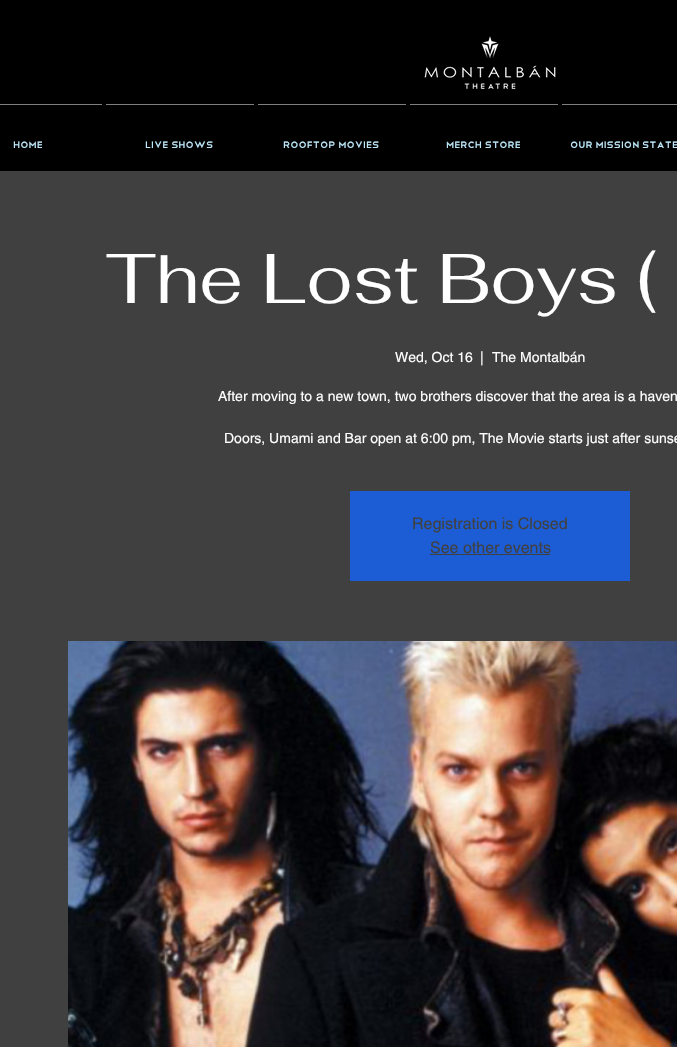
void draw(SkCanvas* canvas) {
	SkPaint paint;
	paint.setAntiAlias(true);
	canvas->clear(0xff000000);
	canvas->drawImageRect(SkImages::DeferredFromEncodedData(SkData::MakeFromFileName("img1.png")), SkRect::MakeXYWH(424, 36, 132, 54), SkSamplingOptions());
	paint.setColor(0xff808080);
	canvas->drawRect(SkRect::MakeXYWH(0, 104, 102, 1), paint);
	SkFont f1(fontMgr->matchFamilyStyle("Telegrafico", SkFontStyle::Normal()), 12);
	f1.setSubpixel(true);
	paint.setColor(0xffbde9fb);
	canvas->drawString("Home", 13, 148, f1, paint);
	paint.setColor(0xff808080);
	canvas->drawRect(SkRect::MakeXYWH(106, 104, 148, 1), paint);
	paint.setColor(0xffbde9fb);
	canvas->drawString("Live Shows", 145, 148, f1, paint);
	paint.setColor(0xff808080);
	canvas->drawRect(SkRect::MakeXYWH(258, 104, 148, 1), paint);
	paint.setColor(0xffbde9fb);
	canvas->drawString("Rooftop Movies", 283, 148, f1, paint);
	paint.setColor(0xff808080);
	canvas->drawRect(SkRect::MakeXYWH(410, 104, 148, 1), paint);
	paint.setColor(0xffbde9fb);
	canvas->drawString("Merch Store", 446, 148, f1, paint);
	paint.setColor(0xff808080);
	canvas->drawRect(SkRect::MakeXYWH(562, 104, 115, 1), paint);
	paint.setColor(0xffbde9fb);
	canvas->drawString("Our Mission State", 570, 148, f1, paint);
	paint.setColor(0xff404040);
	canvas->drawRect(SkRect::MakeXYWH(0, 171, 677, 876), paint);
	SkFont f2(fontMgr->matchFamilyStyle("Fahkwang", SkFontStyle::Normal()), 70);
	f2.setSubpixel(true);
	paint.setColor(0xffffffff);
	canvas->drawString("The Lost Boys (", 106, 303, f2, paint);
	SkFont f3(fontMgr->matchFamilyStyle("helvetica", SkFontStyle::Normal()), 14);
	f3.setSubpixel(true);
	canvas->drawString("Wed, Oct 16", 395, 362, f3, paint);
	canvas->drawString("|", 480, 362, f3, paint);
	canvas->drawString("The Montalbán", 492, 362, f3, paint);
	canvas->drawString("After moving to a new town, two brothers discover that the area is a haven", 218, 401, f3, paint);
	canvas->drawString("Doors, Umami and Bar open at 6:00 pm, The Movie starts just after sunse", 224, 443, f3, paint);
	paint.setColor(0xff1c5cd4);
	canvas->drawRect(SkRect::MakeXYWH(350, 491, 280, 90), paint);
	SkFont f4(fontMgr->matchFamilyStyle("helvetica", SkFontStyle::Normal()), 16);
	f4.setSubpixel(true);
	paint.setColor(0xff404040);
	canvas->drawString("Registration is Closed", 412, 529, f4, paint);
	canvas->drawString("See other events", 430, 553, f4, paint);
	canvas->drawRect(SkRect::MakeXYWH(430, 554, 120, 1), paint);
	canvas->drawImageRect(SkImages::DeferredFromEncodedData(SkData::MakeFromFileName("img2.png")), SkRect::MakeXYWH(68, 641, 609, 406), SkSamplingOptions());
}
